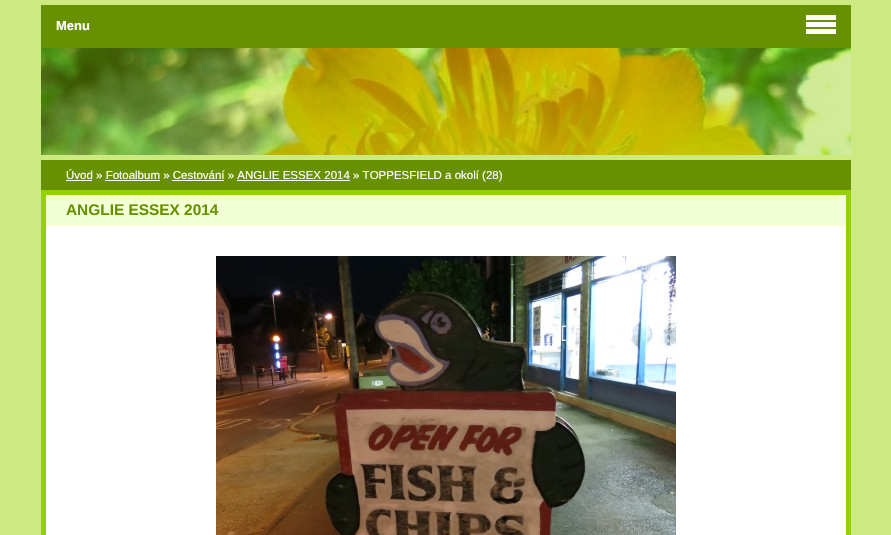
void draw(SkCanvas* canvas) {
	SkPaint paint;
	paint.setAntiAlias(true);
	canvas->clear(0xffccea81);
	paint.setColor(0xff689101);
	canvas->drawRect(SkRect::MakeXYWH(41, 5, 810, 43), paint);
	SkFont f1(fontMgr->matchFamilyStyle("Liberation Sans", SkFontStyle::Bold()), 13);
	f1.setSubpixel(true);
	paint.setColor(0xffffffff);
	canvas->drawString("Menu", 56, 30, f1, paint);
	paint.setColor(0xff689101);
	canvas->drawRect(SkRect::MakeXYWH(41, 160, 810, 30), paint);
	paint.setColor(0xffffffff);
	canvas->drawRect(SkRect::MakeXYWH(66, 180, 26, 1), paint);
	SkFont f2(fontMgr->matchFamilyStyle("Liberation Sans", SkFontStyle::Normal()), 11.5);
	f2.setSubpixel(true);
	canvas->drawString("Úvod » Fotoalbum » Cestování » ANGLIE ESSEX 2014 » TOPPESFIELD a okolí (28)", 66, 179, f2, paint);
	canvas->drawRect(SkRect::MakeXYWH(105, 180, 55, 1), paint);
	canvas->drawRect(SkRect::MakeXYWH(172, 180, 52, 1), paint);
	canvas->drawRect(SkRect::MakeXYWH(237, 180, 113, 1), paint);
	canvas->drawRect(SkRect::MakeXYWH(46, 226, 800, 309), paint);
	paint.setStroke(true);
	paint.setStrokeWidth(5);
	paint.setColor(0xff95d001);
	canvas->drawRect(SkRect::MakeXYWH(43.5, 192.5, 805, 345), paint);
	paint.setStroke(false);
	paint.setColor(0xfff3ffd5);
	canvas->drawRect(SkRect::MakeXYWH(46, 195, 800, 31), paint);
	SkFont f3(fontMgr->matchFamilyStyle("Liberation Sans", SkFontStyle::Bold()), 15.4);
	f3.setSubpixel(true);
	paint.setColor(0xff689101);
	canvas->drawString("ANGLIE ESSEX 2014", 66, 215, f3, paint);
	canvas->drawImageRect(SkImages::DeferredFromEncodedData(SkData::MakeFromFileName("img1.png")), SkRect::MakeXYWH(216, 256, 460, 279), SkSamplingOptions());
	paint.setColor(0xffffffff);
	canvas->drawRect(SkRect::MakeXYWH(806, 15, 30, 5), paint);
	canvas->drawRect(SkRect::MakeXYWH(806, 22, 30, 5), paint);
	canvas->drawRect(SkRect::MakeXYWH(806, 29, 30, 5), paint);
	canvas->drawImageRect(SkImages::DeferredFromEncodedData(SkData::MakeFromFileName("img2.png")), SkRect::MakeXYWH(41, 48, 810, 107), SkSamplingOptions());
	paint.setColor(0x6694d001);
	canvas->drawRect(SkRect::MakeXYWH(41, 48, 810, 107), paint);
}
